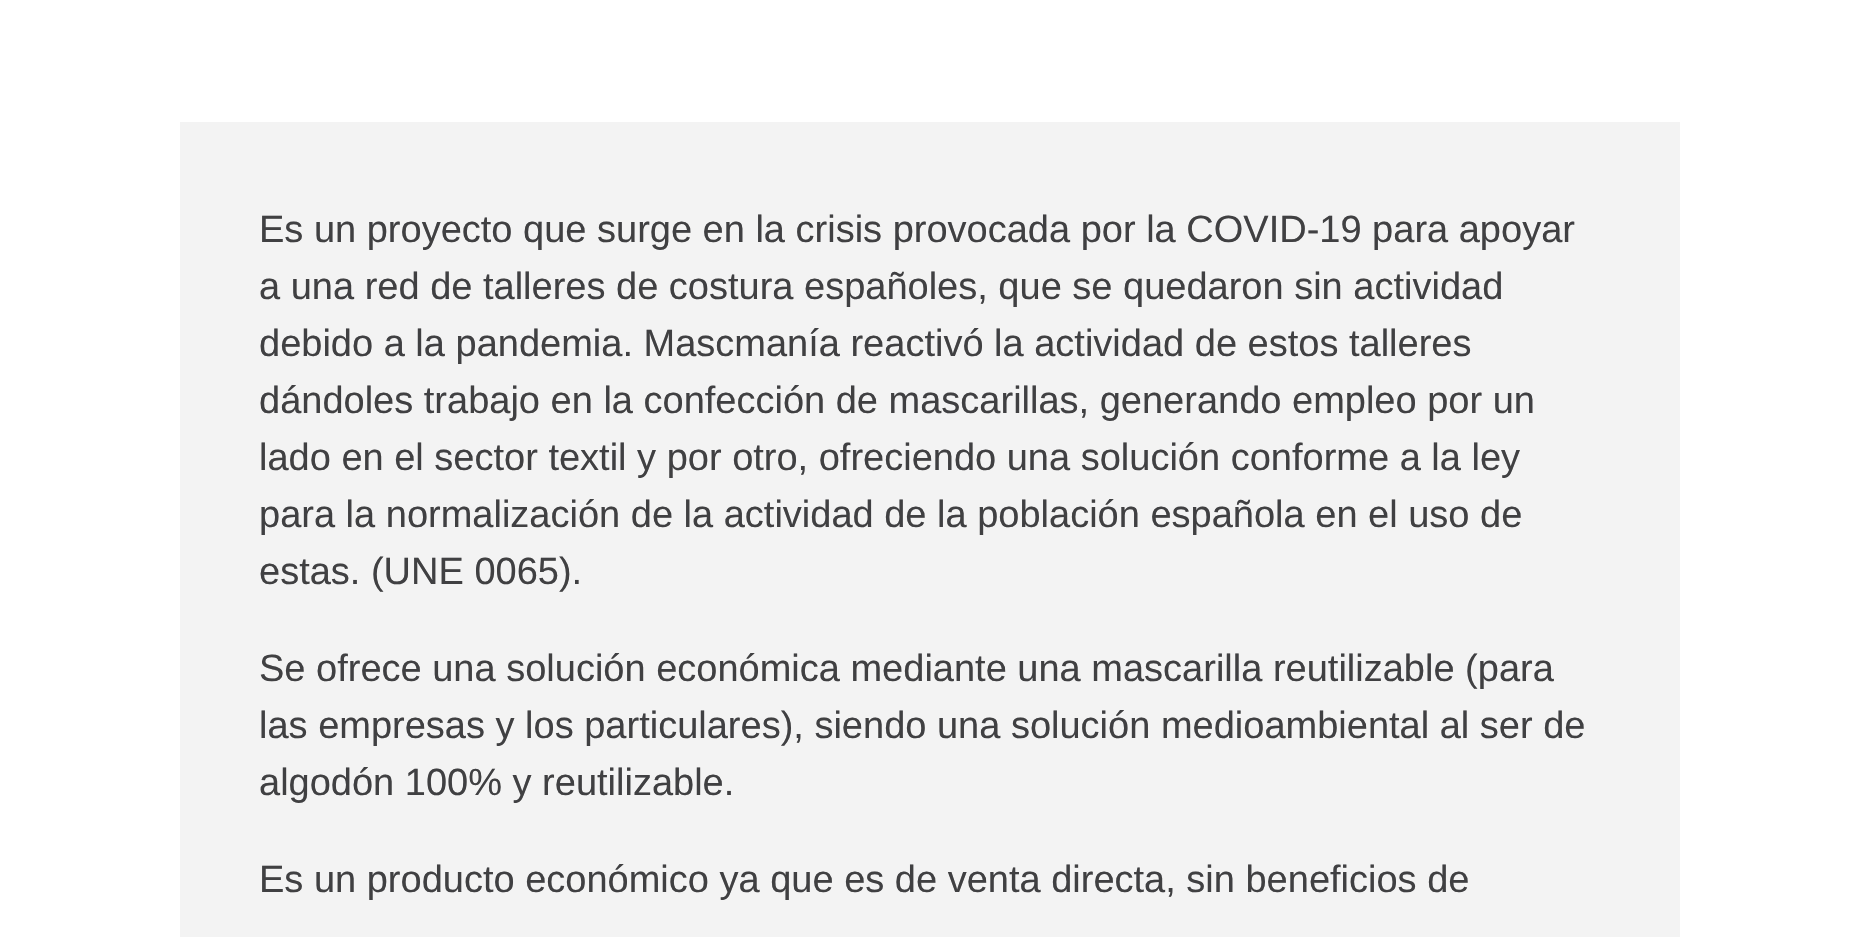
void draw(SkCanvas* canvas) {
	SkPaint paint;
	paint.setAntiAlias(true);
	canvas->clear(0xffffffff);
	paint.setColor(0xfff3f3f3);
	canvas->drawRect(SkRect::MakeXYWH(180, 122, 1500, 815), paint);
	SkFont f1(fontMgr->matchFamilyStyle("Liberation Sans", SkFontStyle::Normal()), 38);
	f1.setSubpixel(true);
	paint.setColor(0xff404042);
	canvas->drawString("Es un proyecto que surge en la crisis provocada por la COVID-19 para apoyar", 259, 242, f1, paint);
	canvas->drawString("a una red de talleres de costura españoles, que se quedaron sin actividad", 259, 299, f1, paint);
	canvas->drawString("debido a la pandemia. Mascmanía reactivó la actividad de estos talleres", 259, 356, f1, paint);
	canvas->drawString("dándoles trabajo en la confección de mascarillas, generando empleo por un", 259, 413, f1, paint);
	canvas->drawString("lado en el sector textil y por otro, ofreciendo una solución conforme a la ley", 259, 470, f1, paint);
	canvas->drawString("para la normalización de la actividad de la población española en el uso de", 259, 527, f1, paint);
	canvas->drawString("estas. (UNE 0065).", 259, 584, f1, paint);
	canvas->drawString("Se ofrece una solución económica mediante una mascarilla reutilizable (para", 259, 681, f1, paint);
	canvas->drawString("las empresas y los particulares), siendo una solución medioambiental al ser de", 259, 738, f1, paint);
	canvas->drawString("algodón 100% y reutilizable.", 259, 795, f1, paint);
	canvas->drawString("Es un producto económico ya que es de venta directa, sin beneficios de", 259, 892, f1, paint);
}
